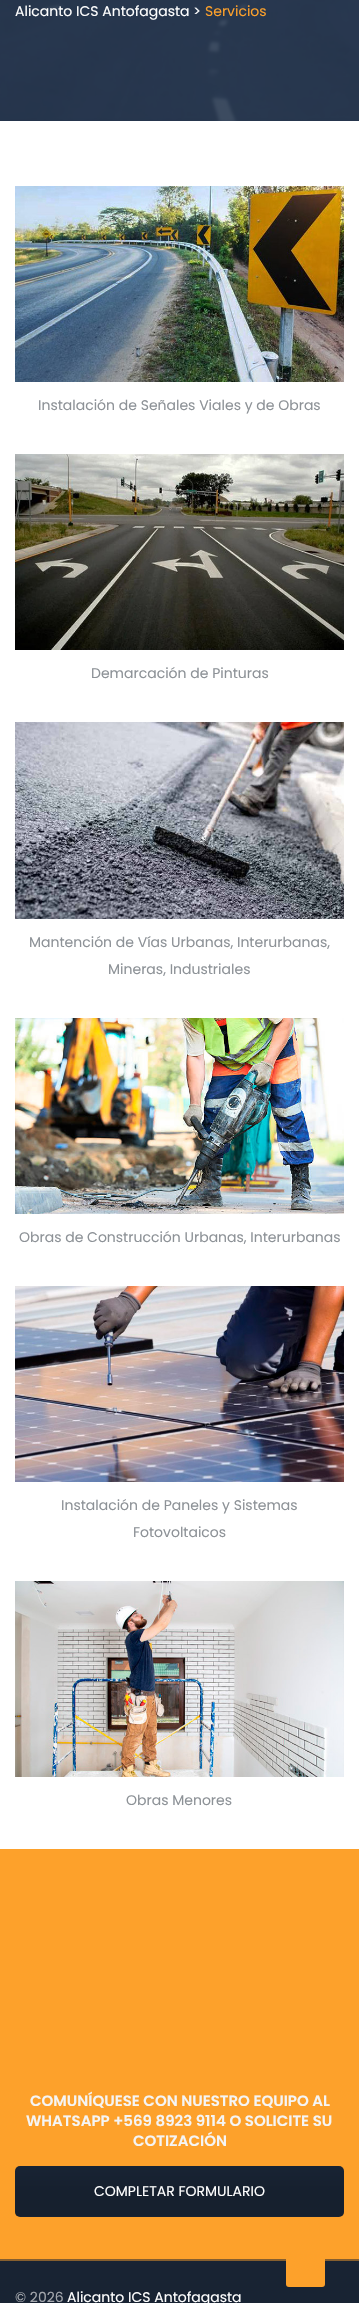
void draw(SkCanvas* canvas) {
	SkPaint paint;
	paint.setAntiAlias(true);
	auto svgPath = [&](const char* data, bool evenOdd = false) {
		SkPath result = *SkParsePath::FromSVGString(data);
		if (evenOdd) result.setFillType(SkPathFillType::kEvenOdd);
		return result;
	};
	canvas->clear(0xffffffff);
	canvas->drawImageRect(SkImages::DeferredFromEncodedData(SkData::MakeFromFileName("img1.png")), SkRect::MakeXYWH(0, 0, 359, 121), SkSamplingOptions());
	SkFont f1(fontMgr->matchFamilyStyle("Poppins", SkFontStyle::Normal()), 14);
	f1.setSubpixel(true);
	paint.setColor(0xffffffff);
	canvas->drawString("Alicanto ICS Antofagasta >", 15, 16, f1, paint);
	paint.setColor(0xfffda12b);
	canvas->drawString("Servicios", 205, 16, f1, paint);
	canvas->drawImageRect(SkImages::DeferredFromEncodedData(SkData::MakeFromFileName("img2.png")), SkRect::MakeXYWH(15, 186, 329, 196), SkSamplingOptions());
	paint.setColor(0xff8d9297);
	canvas->drawString("Instalación de Señales Viales y de Obras", 38, 410, f1, paint);
	canvas->drawImageRect(SkImages::DeferredFromEncodedData(SkData::MakeFromFileName("img3.png")), SkRect::MakeXYWH(15, 454, 329, 196), SkSamplingOptions());
	canvas->drawString("Demarcación de Pinturas", 91, 678, f1, paint);
	canvas->drawImageRect(SkImages::DeferredFromEncodedData(SkData::MakeFromFileName("img4.png")), SkRect::MakeXYWH(15, 722, 329, 197), SkSamplingOptions());
	canvas->drawString("Mantención de Vías Urbanas, Interurbanas,", 29, 947, f1, paint);
	canvas->drawString("Mineras, Industriales", 108, 974, f1, paint);
	canvas->drawImageRect(SkImages::DeferredFromEncodedData(SkData::MakeFromFileName("img5.png")), SkRect::MakeXYWH(15, 1018, 329, 196), SkSamplingOptions());
	canvas->drawString("Obras de Construcción Urbanas, Interurbanas", 19, 1242, f1, paint);
	canvas->drawImageRect(SkImages::DeferredFromEncodedData(SkData::MakeFromFileName("img6.png")), SkRect::MakeXYWH(15, 1286, 329, 196), SkSamplingOptions());
	canvas->drawString("Instalación de Paneles y Sistemas", 61, 1510, f1, paint);
	canvas->drawString("Fotovoltaicos", 133, 1537, f1, paint);
	canvas->drawImageRect(SkImages::DeferredFromEncodedData(SkData::MakeFromFileName("img7.png")), SkRect::MakeXYWH(15, 1581, 329, 196), SkSamplingOptions());
	canvas->drawString("Obras Menores", 126, 1805, f1, paint);
	paint.setColor(0xfffda12b);
	canvas->drawRect(SkRect::MakeXYWH(0, 1849, 359, 410), paint);
	SkFont f2(fontMgr->matchFamilyStyle("Poppins", SkFontStyle(600, SkFontStyle::kNormal_Width, SkFontStyle::kUpright_Slant)), 15);
	f2.setSubpixel(true);
	paint.setColor(0xfff5f5f5);
	canvas->drawString("COMUNÍQUESE CON NUESTRO EQUIPO AL", 30, 2106, f2, paint);
	canvas->drawString("WHATSAPP +569 8923 9114 O SOLICITE SU", 26, 2126, f2, paint);
	canvas->drawString("COTIZACIÓN", 133, 2146, f2, paint);
	paint.setColor(0xff182333);
	canvas->drawRoundRect(SkRect::MakeXYWH(15, 2166, 329, 51), 5, 5, paint);
	canvas->save();
	canvas->clipPath(svgPath("M20 2166H339C342 2166 344 2168 344 2171V2212C344 2215 342 2217 339 2217H20C17 2217 15 2215 15 2212V2171C15 2168 17 2166 20 2166Z"), true);
	{
		const SkColor colors[] = {0x00000000, 0x1a000000, 0x1a000000};
		const float stops[] = {0, 0.5, 1};
		const SkPoint ends[] = {{343, 2167}, {343, 2216}};
		paint.setShader(SkGradientShader::MakeLinear(ends, colors, stops, 3, SkTileMode::kClamp));
		paint.setAlpha(255);
	}
	canvas->drawRect(SkRect::MakeXYWH(15, 2172, 329, 44), paint);
	canvas->restore();
	paint.setShader(nullptr);
	paint.setColor(0xffffffff);
	canvas->drawString("COMPLETAR FORMULARIO", 94, 2196, f1, paint);
	paint.setColor(0xff182333);
	canvas->drawRect(SkRect::MakeXYWH(0, 2261, 359, 42), paint);
	paint.setColor(0xff865f2f);
	canvas->drawRect(SkRect::MakeXYWH(0, 2259, 359, 2), paint);
	paint.setColor(0xffa3a7ad);
	canvas->drawString("© 2026", 15, 2302, f1, paint);
	paint.setColor(0xffffffff);
	canvas->drawString("Alicanto ICS Antofagasta", 67, 2302, f1, paint);
	paint.setColor(0xfffda12b);
	canvas->drawRoundRect(SkRect::MakeXYWH(286, 2248, 39, 39), 3, 3, paint);
}
